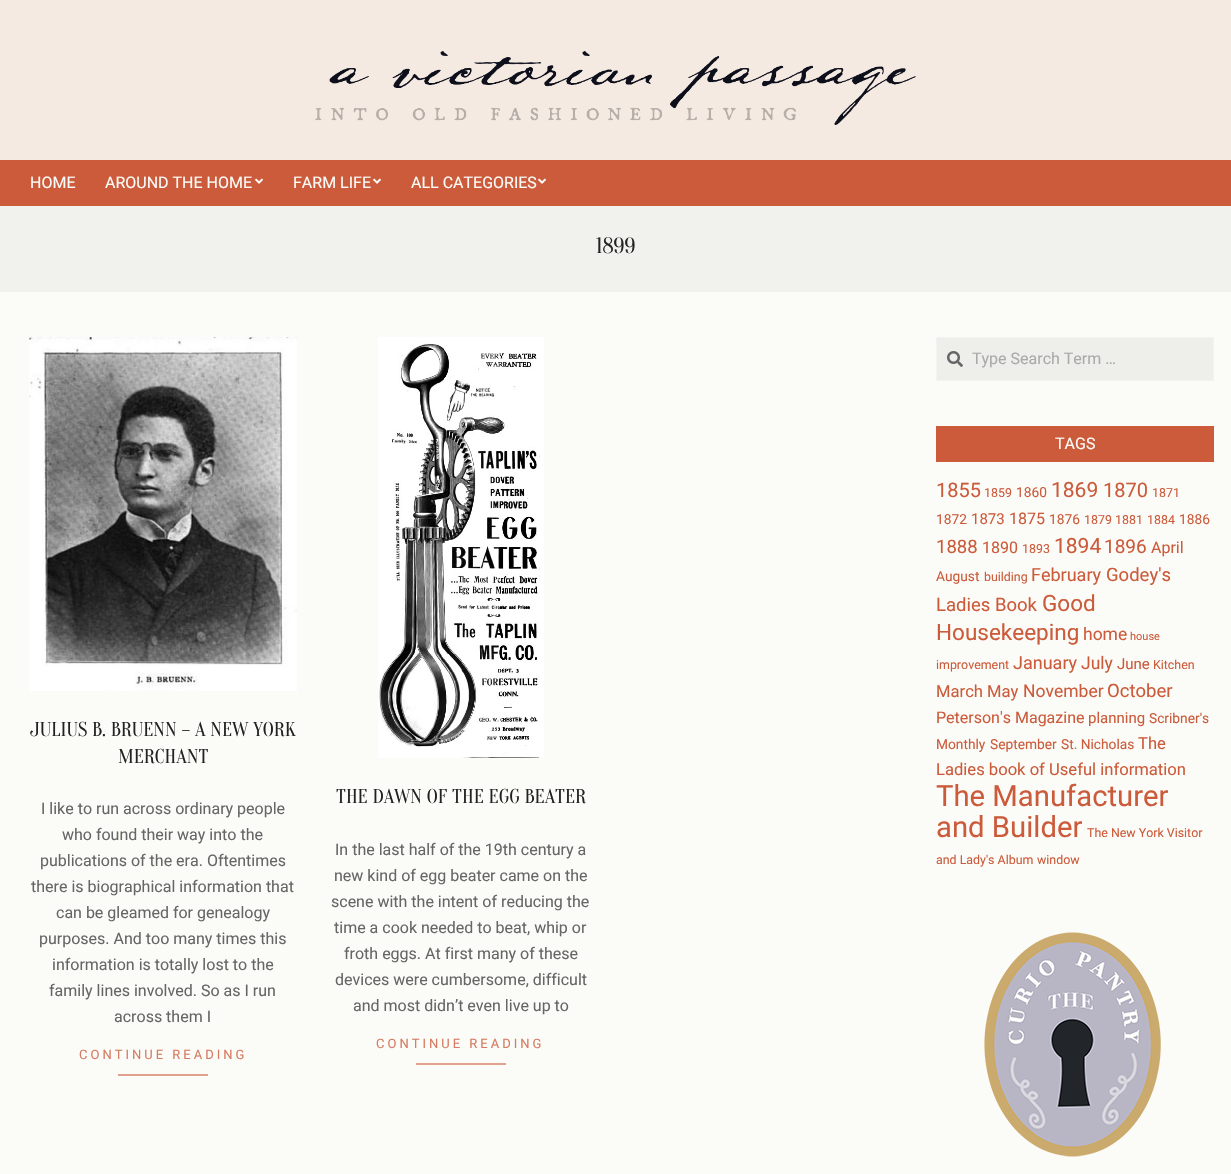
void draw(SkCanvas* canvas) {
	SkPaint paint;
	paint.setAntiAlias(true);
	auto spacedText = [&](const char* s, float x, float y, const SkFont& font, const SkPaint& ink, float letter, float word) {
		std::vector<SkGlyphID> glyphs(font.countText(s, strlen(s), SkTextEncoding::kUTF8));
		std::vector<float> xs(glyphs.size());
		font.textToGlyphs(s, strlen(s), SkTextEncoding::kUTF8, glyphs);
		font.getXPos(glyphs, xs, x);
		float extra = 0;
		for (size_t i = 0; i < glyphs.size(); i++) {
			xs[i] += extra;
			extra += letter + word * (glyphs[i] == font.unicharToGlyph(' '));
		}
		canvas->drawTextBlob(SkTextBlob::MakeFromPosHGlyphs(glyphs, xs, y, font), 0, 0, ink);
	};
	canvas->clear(0xfff5eae2);
	canvas->drawImageRect(SkImages::DeferredFromEncodedData(SkData::MakeFromFileName("img1.png")), SkRect::MakeXYWH(315, 51, 601, 74), SkSamplingOptions());
	paint.setColor(0xffcc5b3b);
	canvas->drawRect(SkRect::MakeXYWH(0, 160, 1231, 46), paint);
	SkFont f1(fontMgr->matchFamilyStyle("Roboto", SkFontStyle::Normal()), 16);
	f1.setSubpixel(true);
	paint.setColor(0xfffbfbf7);
	canvas->drawString("HOME", 30, 188, f1, paint);
	canvas->drawString("AROUND THE HOME", 105, 188, f1, paint);
	canvas->drawImageRect(SkImages::DeferredFromEncodedData(SkData::MakeFromFileName("img2.png")), SkRect::MakeXYWH(255, 178, 8, 6), SkSamplingOptions());
	canvas->drawString("FARM LIFE", 293, 188, f1, paint);
	canvas->drawImageRect(SkImages::DeferredFromEncodedData(SkData::MakeFromFileName("img2.png")), SkRect::MakeXYWH(373, 178, 8, 6), SkSamplingOptions());
	canvas->drawString("ALL CATEGORIES", 411, 188, f1, paint);
	canvas->drawImageRect(SkImages::DeferredFromEncodedData(SkData::MakeFromFileName("img2.png")), SkRect::MakeXYWH(538, 178, 8, 6), SkSamplingOptions());
	canvas->drawRect(SkRect::MakeXYWH(0, 292, 1231, 882), paint);
	paint.setColor(0xfff1f1ed);
	canvas->drawRect(SkRect::MakeXYWH(0, 206, 1231, 86), paint);
	SkFont f2(fontMgr->matchFamilyStyle("Oranienbaum", SkFontStyle::Normal()), 22);
	f2.setSubpixel(true);
	paint.setColor(0xff222222);
	canvas->drawString("1899", 596, 253, f2, paint);
	canvas->drawImageRect(SkImages::DeferredFromEncodedData(SkData::MakeFromFileName("img3.png")), SkRect::MakeXYWH(29, 337, 268, 354), SkSamplingOptions());
	SkFont f3(fontMgr->matchFamilyStyle("Oranienbaum", SkFontStyle::Normal()), 20);
	f3.setSubpixel(true);
	canvas->drawString("JULIUS B. BRUENN – A NEW YORK", 30, 736, f3, paint);
	canvas->drawString("MERCHANT", 118, 763, f3, paint);
	paint.setColor(0xff666666);
	canvas->drawString("I like to run across ordinary people", 41, 814, f1, paint);
	canvas->drawString("who found their way into the", 62, 840, f1, paint);
	canvas->drawString("publications of the era. Oftentimes", 40, 866, f1, paint);
	canvas->drawString("there is biographical information that", 31, 892, f1, paint);
	canvas->drawString("can be gleamed for genealogy", 56, 918, f1, paint);
	canvas->drawString("purposes. And too many times this", 39, 944, f1, paint);
	canvas->drawString("information is totally lost to the", 52, 970, f1, paint);
	canvas->drawString("family lines involved. So as I run", 49, 996, f1, paint);
	canvas->drawString("across them I", 114, 1022, f1, paint);
	SkFont f4(fontMgr->matchFamilyStyle("Roboto", SkFontStyle::Normal()), 13);
	f4.setSubpixel(true);
	paint.setColor(0xffd57b61);
	spacedText("CONTINUE READING", 79, 1059, f4, paint, 3, 0);
	paint.setColor(0xffe1a18e);
	canvas->drawRect(SkRect::MakeXYWH(118, 1074, 90, 2), paint);
	canvas->drawImageRect(SkImages::DeferredFromEncodedData(SkData::MakeFromFileName("img4.png")), SkRect::MakeXYWH(378, 337, 166, 421), SkSamplingOptions());
	paint.setColor(0xff222222);
	canvas->drawString("THE DAWN OF THE EGG BEATER", 336, 803, f3, paint);
	paint.setColor(0xff666666);
	canvas->drawString("In the last half of the 19th century a", 335, 855, f1, paint);
	canvas->drawString("new kind of egg beater came on the", 334, 881, f1, paint);
	canvas->drawString("scene with the intent of reducing the", 331, 907, f1, paint);
	canvas->drawString("time a cook needed to beat, whip or", 334, 933, f1, paint);
	canvas->drawString("froth eggs. At first many of these", 344, 959, f1, paint);
	canvas->drawString("devices were cumbersome, difficult", 335, 985, f1, paint);
	canvas->drawString("and most didn’t even live up to", 353, 1011, f1, paint);
	paint.setColor(0xffd57b61);
	spacedText("CONTINUE READING", 376, 1048, f4, paint, 3, 0);
	paint.setColor(0xffe1a18e);
	canvas->drawRect(SkRect::MakeXYWH(416, 1063, 90, 2), paint);
	paint.setColor(0xffeeeeeb);
	canvas->drawRect(SkRect::MakeXYWH(936.5, 337.5, 277, 43), paint);
	paint.setStroke(true);
	paint.setStrokeWidth(1);
	paint.setColor(0xfff3f3f1);
	canvas->drawRect(SkRect::MakeXYWH(936.5, 337.5, 277, 43), paint);
	canvas->drawImageRect(SkImages::DeferredFromEncodedData(SkData::MakeFromFileName("img5.png")), SkRect::MakeXYWH(947, 351, 16, 16), SkSamplingOptions());
	paint.setStroke(false);
	paint.setColor(0xffaaaaa9);
	canvas->drawString("Type Search Term …", 972, 364, f1, paint);
	paint.setColor(0xffcc5b3b);
	canvas->drawRect(SkRect::MakeXYWH(936, 426, 278, 36), paint);
	paint.setColor(0xfffbfbf7);
	canvas->drawString("TAGS", 1055, 449, f1, paint);
	SkFont f5(fontMgr->matchFamilyStyle("Roboto", SkFontStyle::Normal()), 20);
	f5.setSubpixel(true);
	paint.setColor(0xffcc5b3b);
	canvas->drawString("1855", 936, 497, f5, paint);
	SkFont f6(fontMgr->matchFamilyStyle("Roboto", SkFontStyle::Normal()), 12.4);
	f6.setSubpixel(true);
	canvas->drawString("1859", 984, 497, f6, paint);
	SkFont f7(fontMgr->matchFamilyStyle("Roboto", SkFontStyle::Normal()), 13.75);
	f7.setSubpixel(true);
	canvas->drawString("1860", 1016, 497, f7, paint);
	SkFont f8(fontMgr->matchFamilyStyle("Roboto", SkFontStyle::Normal()), 21);
	f8.setSubpixel(true);
	canvas->drawString("1869", 1051, 497, f8, paint);
	canvas->drawString("1870", 1103, 497, f5, paint);
	canvas->drawString("1871", 1152, 497, f6, paint);
	canvas->drawString("1872", 936, 524, f7, paint);
	SkFont f9(fontMgr->matchFamilyStyle("Roboto", SkFontStyle::Normal()), 15);
	f9.setSubpixel(true);
	canvas->drawString("1873", 971, 524, f9, paint);
	canvas->drawString("1875", 1009, 524, f1, paint);
	canvas->drawString("1876", 1049, 524, f7, paint);
	canvas->drawString("1879", 1084, 524, f6, paint);
	canvas->drawString("1881", 1115, 524, f6, paint);
	canvas->drawString("1884", 1147, 524, f6, paint);
	canvas->drawString("1886", 1179, 524, f7, paint);
	SkFont f10(fontMgr->matchFamilyStyle("Roboto", SkFontStyle::Normal()), 18.5);
	f10.setSubpixel(true);
	canvas->drawString("1888", 936, 553, f10, paint);
	canvas->drawString("1890", 982, 553, f1, paint);
	canvas->drawString("1893", 1022, 553, f6, paint);
	canvas->drawString("1894", 1054, 553, f8, paint);
	SkFont f11(fontMgr->matchFamilyStyle("Roboto", SkFontStyle::Normal()), 19);
	f11.setSubpixel(true);
	canvas->drawString("1896", 1104, 553, f11, paint);
	canvas->drawString("April", 1151, 553, f1, paint);
	canvas->drawString("August", 936, 581, f7, paint);
	canvas->drawString("building", 984, 581, f6, paint);
	SkFont f12(fontMgr->matchFamilyStyle("Roboto", SkFontStyle::Normal()), 18);
	f12.setSubpixel(true);
	canvas->drawString("February", 1031, 581, f12, paint);
	canvas->drawString("Godey's", 1106, 581, f10, paint);
	canvas->drawString("Ladies Book", 936, 611, f10, paint);
	SkFont f13(fontMgr->matchFamilyStyle("Roboto", SkFontStyle::Normal()), 22.5);
	f13.setSubpixel(true);
	canvas->drawString("Good", 1042, 611, f13, paint);
	canvas->drawString("Housekeeping", 936, 640, f13, paint);
	SkFont f14(fontMgr->matchFamilyStyle("Roboto", SkFontStyle::Normal()), 17.5);
	f14.setSubpixel(true);
	canvas->drawString("home", 1083, 640, f14, paint);
	SkFont f15(fontMgr->matchFamilyStyle("Roboto", SkFontStyle::Normal()), 11);
	f15.setSubpixel(true);
	canvas->drawString("house", 1130, 640, f15, paint);
	canvas->drawString("improvement", 936, 669, f6, paint);
	canvas->drawString("January", 1013, 669, f12, paint);
	canvas->drawString("July", 1081, 669, f14, paint);
	canvas->drawString("June", 1117, 669, f9, paint);
	canvas->drawString("Kitchen", 1153, 669, f6, paint);
	SkFont f16(fontMgr->matchFamilyStyle("Roboto", SkFontStyle::Normal()), 16.6);
	f16.setSubpixel(true);
	canvas->drawString("March May", 936, 697, f16, paint);
	canvas->drawString("November", 1023, 697, f14, paint);
	canvas->drawString("October", 1107, 697, f10, paint);
	canvas->drawString("Peterson's Magazine", 936, 723, f1, paint);
	canvas->drawString("planning", 1088, 723, f9, paint);
	canvas->drawString("Scribner's", 1149, 723, f7, paint);
	canvas->drawString("Monthly", 936, 749, f7, paint);
	canvas->drawString("September", 990, 749, f7, paint);
	canvas->drawString("St. Nicholas", 1061, 749, f7, paint);
	canvas->drawString("The", 1138, 749, f16, paint);
	canvas->drawString("Ladies book of Useful information", 936, 775, f16, paint);
	SkFont f17(fontMgr->matchFamilyStyle("Roboto", SkFontStyle::Normal()), 29.25);
	f17.setSubpixel(true);
	canvas->drawString("The Manufacturer", 936, 806, f17, paint);
	canvas->drawString("and Builder", 936, 837, f17, paint);
	canvas->drawString("The New York Visitor", 1087, 837, f6, paint);
	canvas->drawString("and Lady's Album", 936, 864, f6, paint);
	canvas->drawString("window", 1037, 864, f6, paint);
	canvas->drawImageRect(SkImages::DeferredFromEncodedData(SkData::MakeFromFileName("img6.png")), SkRect::MakeXYWH(984, 932, 177, 225), SkSamplingOptions());
}
